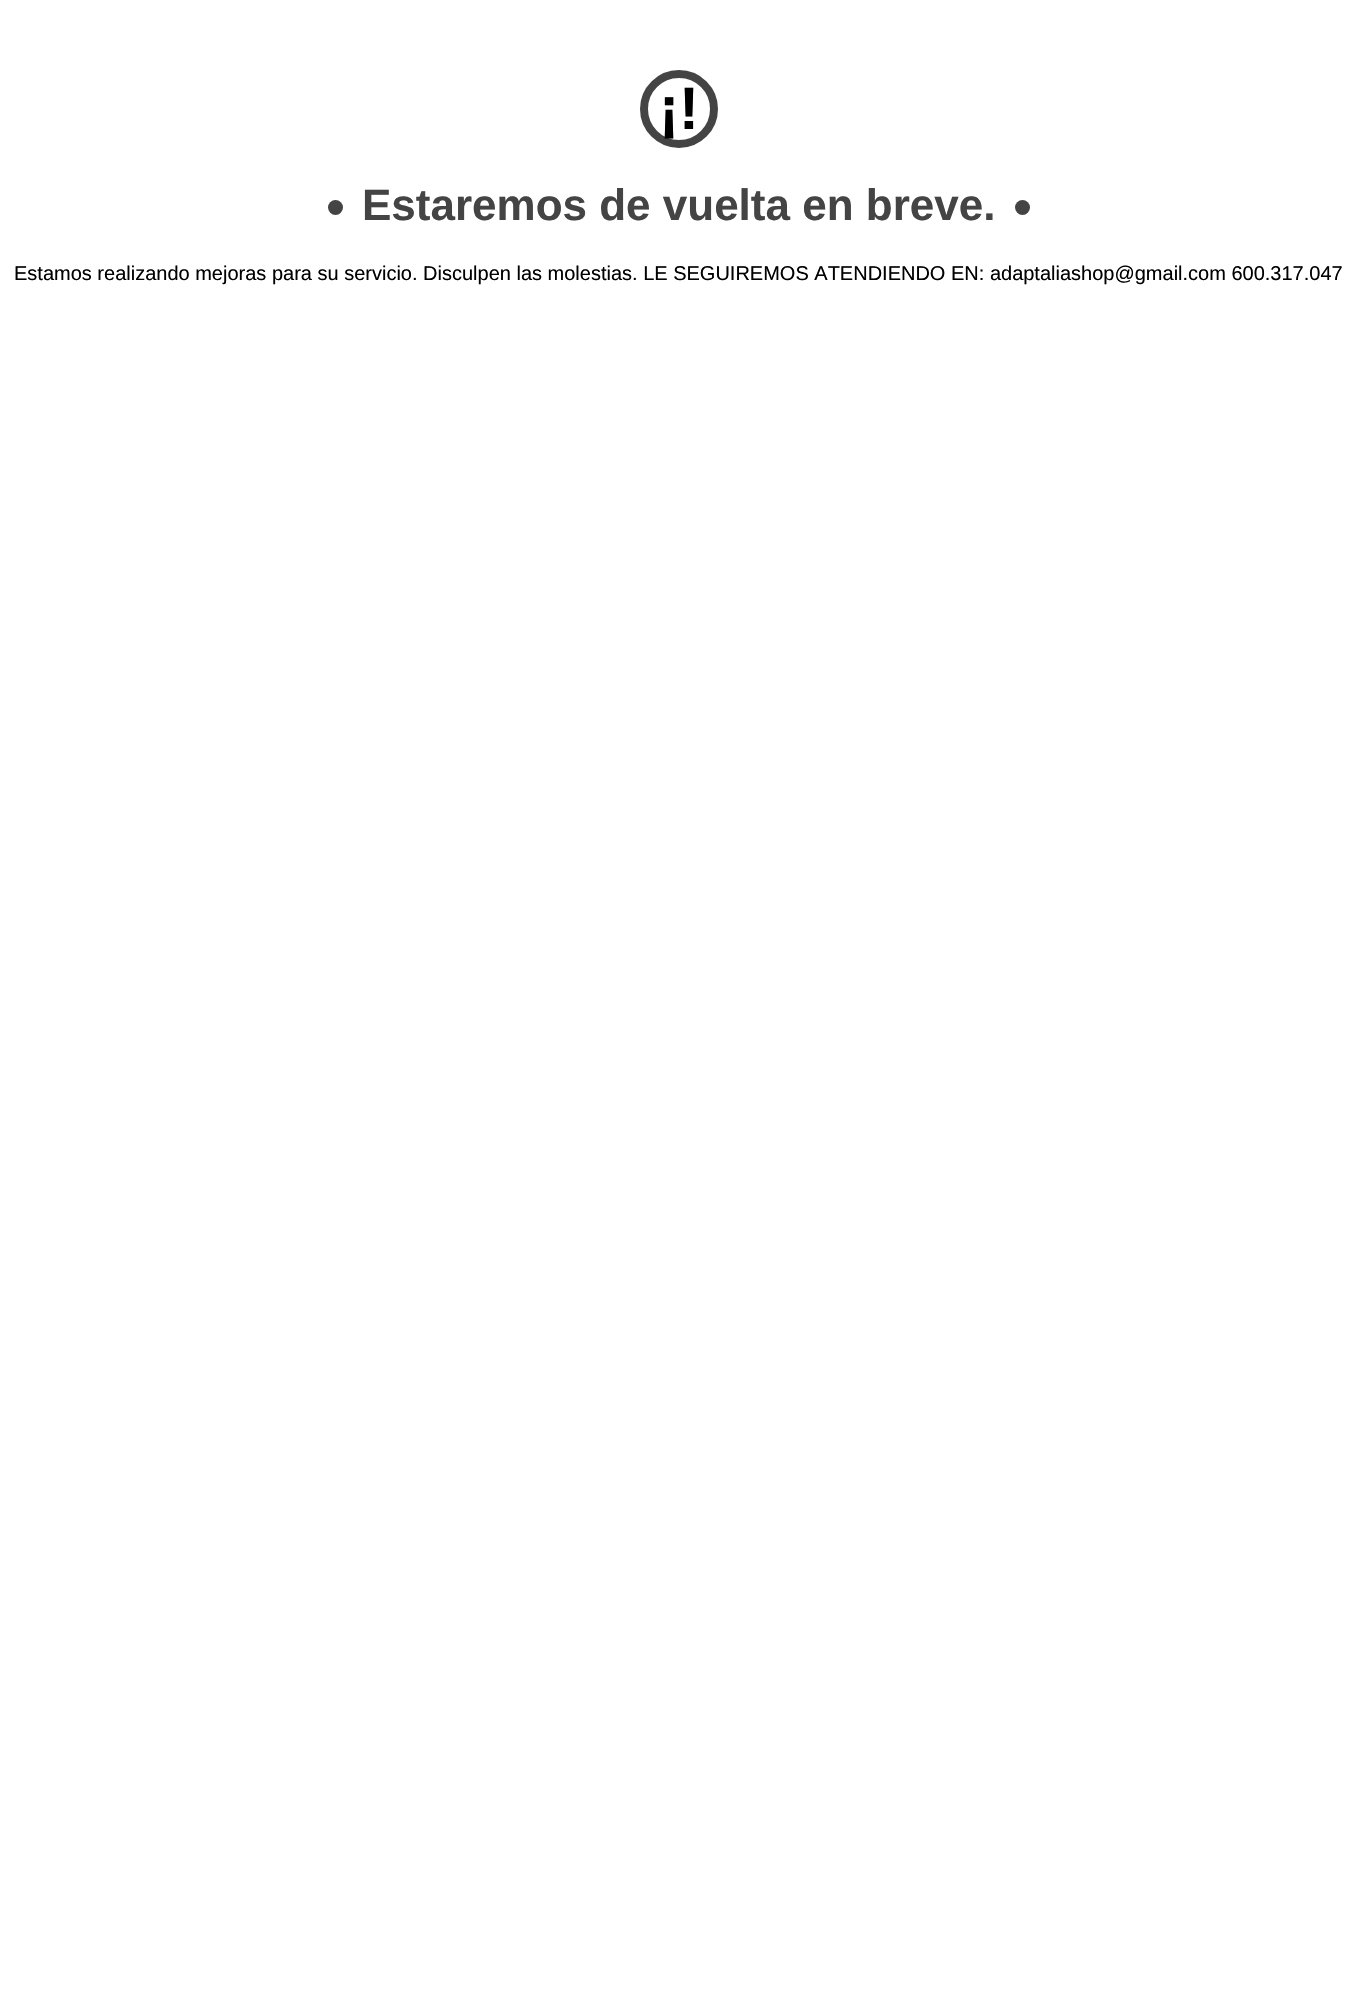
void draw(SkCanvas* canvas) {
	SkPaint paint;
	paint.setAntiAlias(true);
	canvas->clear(0xffffffff);
	paint.setStroke(true);
	paint.setStrokeWidth(8);
	paint.setColor(0xff444444);
	canvas->drawCircle(679, 109, 35, paint);
	SkFont f1(fontMgr->matchFamilyStyle("Liberation Sans", SkFontStyle::Bold()), 60);
	f1.setSubpixel(true);
	paint.setStroke(false);
	paint.setColor(0xff000000);
	canvas->drawString("¡!", 659, 129, f1, paint);
	paint.setColor(0xff444444);
	canvas->drawCircle(335.5, 207.5, 7.5, paint);
	SkFont f2(fontMgr->matchFamilyStyle("Liberation Sans", SkFontStyle::Bold()), 44);
	f2.setSubpixel(true);
	canvas->drawString("Estaremos de vuelta en breve.", 362, 220, f2, paint);
	canvas->drawCircle(1022.5, 207.5, 7.5, paint);
	SkFont f3(fontMgr->matchFamilyStyle("Liberation Sans", SkFontStyle::Normal()), 20);
	f3.setSubpixel(true);
	paint.setColor(0xff000000);
	canvas->drawString("Estamos realizando mejoras para su servicio. Disculpen las molestias. LE SEGUIREMOS ATENDIENDO EN: adaptaliashop@gmail.com 600.317.047", 14, 280, f3, paint);
}
